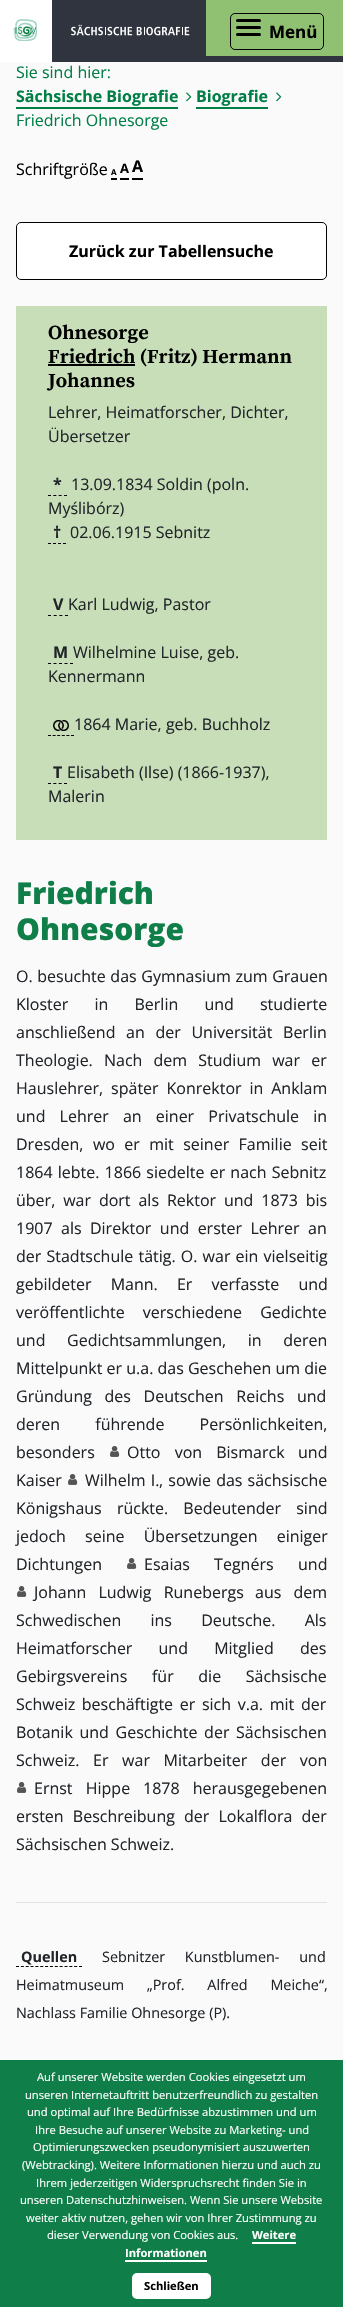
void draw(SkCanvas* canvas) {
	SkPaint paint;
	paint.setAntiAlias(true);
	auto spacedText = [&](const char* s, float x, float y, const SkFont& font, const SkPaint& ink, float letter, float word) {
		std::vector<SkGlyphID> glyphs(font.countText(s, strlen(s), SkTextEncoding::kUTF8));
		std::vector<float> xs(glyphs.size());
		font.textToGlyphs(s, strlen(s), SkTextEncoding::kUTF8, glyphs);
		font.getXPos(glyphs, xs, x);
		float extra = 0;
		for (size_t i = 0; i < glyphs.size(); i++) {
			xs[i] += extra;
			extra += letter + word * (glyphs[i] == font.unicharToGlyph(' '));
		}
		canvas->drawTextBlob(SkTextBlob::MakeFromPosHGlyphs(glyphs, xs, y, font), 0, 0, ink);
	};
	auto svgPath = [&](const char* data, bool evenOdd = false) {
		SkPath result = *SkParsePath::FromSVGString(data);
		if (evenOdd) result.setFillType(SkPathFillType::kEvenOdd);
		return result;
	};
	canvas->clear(0xfffafafa);
	paint.setColor(0xff90c071);
	canvas->drawRect(SkRect::MakeXYWH(206, 0, 137, 56), paint);
	paint.setColor(0xff30343f);
	canvas->drawRect(SkRect::MakeXYWH(206, 56, 137, 6), paint);
	paint.setColor(0xffffffff);
	canvas->drawRect(SkRect::MakeXYWH(0, 0, 52, 62), paint);
	canvas->drawImageRect(SkImages::DeferredFromEncodedData(SkData::MakeFromFileName("img1.png")), SkRect::MakeXYWH(13, 19, 24, 22), SkSamplingOptions());
	paint.setColor(0xff30343f);
	canvas->drawRect(SkRect::MakeXYWH(52, 0, 154, 62), paint);
	canvas->drawImageRect(SkImages::DeferredFromEncodedData(SkData::MakeFromFileName("img2.png")), SkRect::MakeXYWH(71, 24, 119, 12), SkSamplingOptions());
	paint.setStroke(true);
	paint.setStrokeWidth(1);
	paint.setColor(0xff000000);
	canvas->drawRoundRect(SkRect::MakeXYWH(230.5, 13.5, 93, 36), 4.5, 4.5, paint);
	paint.setStroke(false);
	canvas->drawRoundRect(SkRect::MakeXYWH(236, 33, 25, 3), 1.5, 1.5, paint);
	canvas->drawRoundRect(SkRect::MakeXYWH(236, 26, 25, 3), 1.5, 1.5, paint);
	canvas->drawRoundRect(SkRect::MakeXYWH(236, 19, 25, 3), 1.5, 1.5, paint);
	SkFont f1(fontMgr->matchFamilyStyle("Open Sans", SkFontStyle::Bold()), 17);
	f1.setSubpixel(true);
	canvas->drawString("Menü", 269, 38, f1, paint);
	SkFont f2(fontMgr->matchFamilyStyle("Open Sans", SkFontStyle::Normal()), 16);
	f2.setSubpixel(true);
	paint.setColor(0xff007e46);
	canvas->drawString("Sie sind hier:", 16, 78, f2, paint);
	SkFont f3(fontMgr->matchFamilyStyle("Open Sans", SkFontStyle::Bold()), 16);
	f3.setSubpixel(true);
	canvas->drawString("Sächsische Biografie", 16, 102, f3, paint);
	canvas->drawRect(SkRect::MakeXYWH(16, 107, 162, 2), paint);
	canvas->drawImageRect(SkImages::DeferredFromEncodedData(SkData::MakeFromFileName("img3.png")), SkRect::MakeXYWH(186, 92, 6, 10), SkSamplingOptions());
	canvas->drawString("Biografie", 196, 102, f3, paint);
	canvas->drawRect(SkRect::MakeXYWH(196, 107, 72, 2), paint);
	canvas->drawImageRect(SkImages::DeferredFromEncodedData(SkData::MakeFromFileName("img3.png")), SkRect::MakeXYWH(276, 92, 6, 10), SkSamplingOptions());
	canvas->drawString("Friedrich Ohnesorge", 16, 126, f2, paint);
	paint.setColor(0xff000000);
	canvas->drawString("Schriftgröße", 16, 175, f2, paint);
	canvas->drawRect(SkRect::MakeXYWH(111, 178, 6, 2), paint);
	SkFont f4(fontMgr->matchFamilyStyle("Open Sans", SkFontStyle::Bold()), 8);
	f4.setSubpixel(true);
	canvas->drawString("A", 111, 175, f4, paint);
	canvas->drawRect(SkRect::MakeXYWH(120, 178, 9, 2), paint);
	SkFont f5(fontMgr->matchFamilyStyle("Open Sans", SkFontStyle::Bold()), 13);
	f5.setSubpixel(true);
	canvas->drawString("A", 120, 173, f5, paint);
	canvas->drawRect(SkRect::MakeXYWH(132, 178, 11, 2), paint);
	canvas->drawString("A", 132, 172, f3, paint);
	paint.setColor(0xffffffff);
	canvas->drawRoundRect(SkRect::MakeXYWH(16.5, 222.5, 310, 57), 4.5, 4.5, paint);
	paint.setStroke(true);
	paint.setColor(0xff000000);
	canvas->drawRoundRect(SkRect::MakeXYWH(16.5, 222.5, 310, 57), 4.5, 4.5, paint);
	paint.setStroke(false);
	canvas->drawString("Zurück zur Tabellensuche", 69, 257, f3, paint);
	paint.setColor(0xffc7deb8);
	canvas->drawRect(SkRect::MakeXYWH(16, 306, 311, 534), paint);
	SkFont f6(fontMgr->matchFamilyStyle("Source Serif Pro", SkFontStyle::Bold()), 20);
	f6.setSubpixel(true);
	paint.setColor(0xff000000);
	canvas->drawString("Ohnesorge", 48, 339, f6, paint);
	canvas->drawRect(SkRect::MakeXYWH(48, 364, 87, 2), paint);
	canvas->drawString("Friedrich (Fritz) Hermann", 48, 363, f6, paint);
	canvas->drawString("Johannes", 48, 387, f6, paint);
	paint.setColor(0xff212529);
	canvas->drawString("Lehrer, Heimatforscher, Dichter,", 48, 418, f2, paint);
	canvas->drawString("Übersetzer", 48, 442, f2, paint);
	canvas->drawString("*", 53, 490, f3, paint);
	paint.setStroke(true);
	paint.setColor(0xff000000);
	paint.setPathEffect(SkDashPathEffect::Make({{3, 2.33f}}, 0));
	canvas->drawPath(svgPath("M48 495.5H67"), paint);
	paint.setPathEffect(nullptr);
	paint.setStroke(false);
	paint.setColor(0xff212529);
	canvas->drawString("13.09.1834 Soldin (poln.", 71, 490, f2, paint);
	canvas->drawString("Myślibórz)", 48, 514, f2, paint);
	canvas->drawString("†", 53, 538, f3, paint);
	paint.setStroke(true);
	paint.setColor(0xff000000);
	paint.setPathEffect(SkDashPathEffect::Make({{3, 2}}, 0));
	canvas->drawPath(svgPath("M48 543.5H66"), paint);
	paint.setPathEffect(nullptr);
	paint.setStroke(false);
	paint.setColor(0xff212529);
	canvas->drawString("02.06.1915 Sebnitz", 70, 538, f2, paint);
	canvas->drawString("V", 53, 610, f3, paint);
	paint.setStroke(true);
	paint.setColor(0xff000000);
	paint.setPathEffect(SkDashPathEffect::Make({{3, 2.67f}}, 0));
	canvas->drawPath(svgPath("M48 615.5H68"), paint);
	paint.setPathEffect(nullptr);
	paint.setStroke(false);
	paint.setColor(0xff212529);
	canvas->drawString("Karl Ludwig, Pastor", 68, 610, f2, paint);
	canvas->drawString("M", 53, 658, f3, paint);
	paint.setStroke(true);
	paint.setColor(0xff000000);
	paint.setPathEffect(SkDashPathEffect::Make({{3, 2.5f}}, 0));
	canvas->drawPath(svgPath("M48 663.5H73"), paint);
	paint.setPathEffect(nullptr);
	paint.setStroke(false);
	paint.setColor(0xff212529);
	canvas->drawString("Wilhelmine Luise, geb.", 73, 658, f2, paint);
	canvas->drawString("Kennermann", 48, 682, f2, paint);
	canvas->drawImageRect(SkImages::DeferredFromEncodedData(SkData::MakeFromFileName("img4.png")), SkRect::MakeXYWH(53, 720, 16, 11), SkSamplingOptions());
	canvas->drawString("1864 Marie, geb. Buchholz", 74, 730, f2, paint);
	paint.setStroke(true);
	paint.setColor(0xff000000);
	paint.setPathEffect(SkDashPathEffect::Make({{3, 1.6f}}, 0));
	canvas->drawPath(svgPath("M48 735.5H74"), paint);
	paint.setPathEffect(nullptr);
	paint.setStroke(false);
	paint.setColor(0xff212529);
	canvas->drawString("T", 53, 778, f3, paint);
	paint.setStroke(true);
	paint.setColor(0xff000000);
	paint.setPathEffect(SkDashPathEffect::Make({{3, 2.33f}}, 0));
	canvas->drawPath(svgPath("M48 783.5H67"), paint);
	paint.setPathEffect(nullptr);
	paint.setStroke(false);
	paint.setColor(0xff212529);
	canvas->drawString("Elisabeth (Ilse) (1866-1937),", 67, 778, f2, paint);
	canvas->drawString("Malerin", 48, 802, f2, paint);
	SkFont f7(fontMgr->matchFamilyStyle("Open Sans", SkFontStyle(800, SkFontStyle::kNormal_Width, SkFontStyle::kUpright_Slant)), 30);
	f7.setSubpixel(true);
	paint.setColor(0xff0f7e48);
	canvas->drawString("Friedrich", 16, 904, f7, paint);
	canvas->save();
	canvas->clipRect(SkRect::MakeXYWH(16, 875, 311, 72));
	canvas->drawString("Ohnesorge", 16, 940, f7, paint);
	canvas->restore();
	paint.setColor(0xff212529);
	spacedText("O. besuchte das Gymnasium zum Grauen", 16, 982, f2, paint, 0, 0.5);
	spacedText("Kloster in Berlin und studierte", 16, 1010, f2, paint, 0, 22);
	spacedText("anschließend an der Universität Berlin", 16, 1038, f2, paint, 0, 6.5);
	spacedText("Theologie. Nach dem Studium war er", 16, 1066, f2, paint, 0, 7);
	spacedText("Hauslehrer, später Konrektor in Anklam", 16, 1094, f2, paint, 0, 3.75);
	spacedText("und Lehrer an einer Privatschule in", 16, 1122, f2, paint, 0, 10);
	spacedText("Dresden, wo er mit seiner Familie seit", 16, 1150, f2, paint, 0, 5.25);
	spacedText("1864 lebte. 1866 siedelte er nach Sebnitz", 16, 1178, f2, paint, 0, 1);
	spacedText("über, war dort als Rektor und 1873 bis", 16, 1206, f2, paint, 0, 3.75);
	spacedText("1907 als Direktor und erster Lehrer an", 16, 1234, f2, paint, 0, 4.25);
	spacedText("der Stadtschule tätig. O. war ein vielseitig", 16, 1262, f2, paint, 0, 1);
	spacedText("gebildeter Mann. Er verfasste und", 16, 1290, f2, paint, 0, 15);
	spacedText("veröffentlichte verschiedene Gedichte", 16, 1318, f2, paint, 0, 14);
	spacedText("und Gedichtsammlungen, in deren", 16, 1346, f2, paint, 0, 17.5);
	canvas->drawString("Mittelpunkt er u.a. das Geschehen um die", 16, 1374, f2, paint);
	spacedText("Gründung des Deutschen Reichs und", 16, 1402, f2, paint, 0, 8.5);
	spacedText("deren führende Persönlichkeiten,", 16, 1430, f2, paint, 0, 31);
	canvas->drawString("besonders", 16, 1458, f2, paint);
	canvas->drawImageRect(SkImages::DeferredFromEncodedData(SkData::MakeFromFileName("img5.png")), SkRect::MakeXYWH(110, 1446, 10, 11), SkSamplingOptions());
	spacedText("Otto von Bismarck", 127, 1458, f2, paint, 0, 10);
	canvas->drawString("und", 298, 1458, f2, paint);
	canvas->drawString("Kaiser", 16, 1486, f2, paint);
	canvas->drawImageRect(SkImages::DeferredFromEncodedData(SkData::MakeFromFileName("img5.png")), SkRect::MakeXYWH(68, 1474, 10, 11), SkSamplingOptions());
	spacedText("Wilhelm I.", 85, 1486, f2, paint, 0, 1);
	spacedText(", sowie das sächsische", 159, 1486, f2, paint, 0, 1);
	spacedText("Königshaus rückte. Bedeutender sind", 16, 1514, f2, paint, 0, 11);
	spacedText("jedoch seine Übersetzungen einiger", 16, 1542, f2, paint, 0, 15);
	canvas->drawString("Dichtungen", 16, 1570, f2, paint);
	canvas->drawImageRect(SkImages::DeferredFromEncodedData(SkData::MakeFromFileName("img5.png")), SkRect::MakeXYWH(127, 1558, 10, 11), SkSamplingOptions());
	spacedText("Esaias Tegnérs", 144, 1570, f2, paint, 0, 20);
	canvas->drawString("und", 298, 1570, f2, paint);
	canvas->drawImageRect(SkImages::DeferredFromEncodedData(SkData::MakeFromFileName("img5.png")), SkRect::MakeXYWH(17, 1586, 10, 11), SkSamplingOptions());
	spacedText("Johann Ludwig Runebergs", 34, 1598, f2, paint, 0, 8);
	spacedText("aus dem", 255, 1598, f2, paint, 0, 8);
	spacedText("Schwedischen ins Deutsche. Als", 16, 1626, f2, paint, 0, 25);
	spacedText("Heimatforscher und Mitglied des", 16, 1654, f2, paint, 0, 22);
	spacedText("Gebirgsvereins für die Sächsische", 16, 1682, f2, paint, 0, 20.5);
	spacedText("Schweiz beschäftigte er sich v.a. mit der", 16, 1710, f2, paint, 0, 2.5);
	spacedText("Botanik und Geschichte der Sächsischen", 16, 1738, f2, paint, 0, 2.5);
	spacedText("Schweiz. Er war Mitarbeiter der von", 16, 1766, f2, paint, 0, 9.5);
	canvas->drawImageRect(SkImages::DeferredFromEncodedData(SkData::MakeFromFileName("img5.png")), SkRect::MakeXYWH(17, 1782, 10, 11), SkSamplingOptions());
	spacedText("Ernst Hippe", 34, 1794, f2, paint, 0, 9);
	spacedText("1878 herausgegebenen", 143, 1794, f2, paint, 0, 9);
	spacedText("ersten Beschreibung der Lokalflora der", 16, 1822, f2, paint, 0, 5);
	canvas->drawString("Sächsischen Schweiz.", 16, 1850, f2, paint);
	paint.setColor(0xffdee2e6);
	canvas->drawRect(SkRect::MakeXYWH(16, 1902, 311, 1), paint);
	SkFont f8(fontMgr->matchFamilyStyle("Open Sans", SkFontStyle::Bold()), 14.4);
	f8.setSubpixel(true);
	paint.setColor(0xff212529);
	canvas->drawString("Quellen", 21, 1962, f8, paint);
	paint.setStroke(true);
	paint.setColor(0xff000000);
	paint.setPathEffect(SkDashPathEffect::Make({{3, 1.85f}}, 0));
	canvas->drawPath(svgPath("M16 1966.5H82"), paint);
	paint.setPathEffect(nullptr);
	SkFont f9(fontMgr->matchFamilyStyle("Open Sans", SkFontStyle::Normal()), 14.4);
	f9.setSubpixel(true);
	paint.setStroke(false);
	paint.setColor(0xff212529);
	spacedText("Sebnitzer Kunstblumen- und", 102, 1962, f9, paint, 0, 16);
	spacedText("Heimatmuseum „Prof. Alfred Meiche“,", 16, 1990, f9, paint, 0, 19);
	canvas->drawString("Nachlass Familie Ohnesorge (P).", 16, 2018, f9, paint);
	paint.setColor(0xff0f7e48);
	canvas->drawRect(SkRect::MakeXYWH(0, 2060, 343, 247), paint);
	SkFont f10(fontMgr->matchFamilyStyle("Open Sans", SkFontStyle::Normal()), 11.2);
	f10.setSubpixel(true);
	paint.setColor(0xffffffff);
	canvas->drawString("Auf unserer Website werden Cookies eingesetzt um", 37, 2081, f10, paint);
	canvas->drawString("unseren Internetauftritt benutzerfreundlich zu gestalten", 25, 2099, f10, paint);
	canvas->drawString("und optimal auf Ihre Bedürfnisse abzustimmen und um", 27, 2116, f10, paint);
	canvas->drawString("Ihre Besuche auf unserer Website zu Marketing- und", 35, 2134, f10, paint);
	canvas->drawString("Optimierungszwecken pseudonymisiert auszuwerten", 33, 2151, f10, paint);
	canvas->drawString("(Webtracking). Weitere Informationen hierzu und auch zu", 22, 2169, f10, paint);
	canvas->drawString("Ihrem jederzeitigen Widerspruchsrecht finden Sie in", 36, 2187, f10, paint);
	canvas->drawString("unseren Datenschutzhinweisen. Wenn Sie unsere Website", 20, 2204, f10, paint);
	canvas->drawString("weiter aktiv nutzen, gehen wir von Ihrer Zustimmung zu", 26, 2222, f10, paint);
	canvas->drawString("dieser Verwendung von Cookies aus.", 47, 2239, f10, paint);
	SkFont f11(fontMgr->matchFamilyStyle("Open Sans", SkFontStyle::Bold()), 11.2);
	f11.setSubpixel(true);
	canvas->drawString("Weitere", 252, 2239, f11, paint);
	canvas->drawRect(SkRect::MakeXYWH(252, 2242, 44, 2), paint);
	canvas->drawString("Informationen", 125, 2257, f11, paint);
	canvas->drawRect(SkRect::MakeXYWH(125, 2260, 82, 2), paint);
	canvas->drawRoundRect(SkRect::MakeXYWH(132, 2273, 79, 26), 5, 5, paint);
	paint.setColor(0xff000000);
	canvas->drawString("Schließen", 144, 2290, f11, paint);
}
